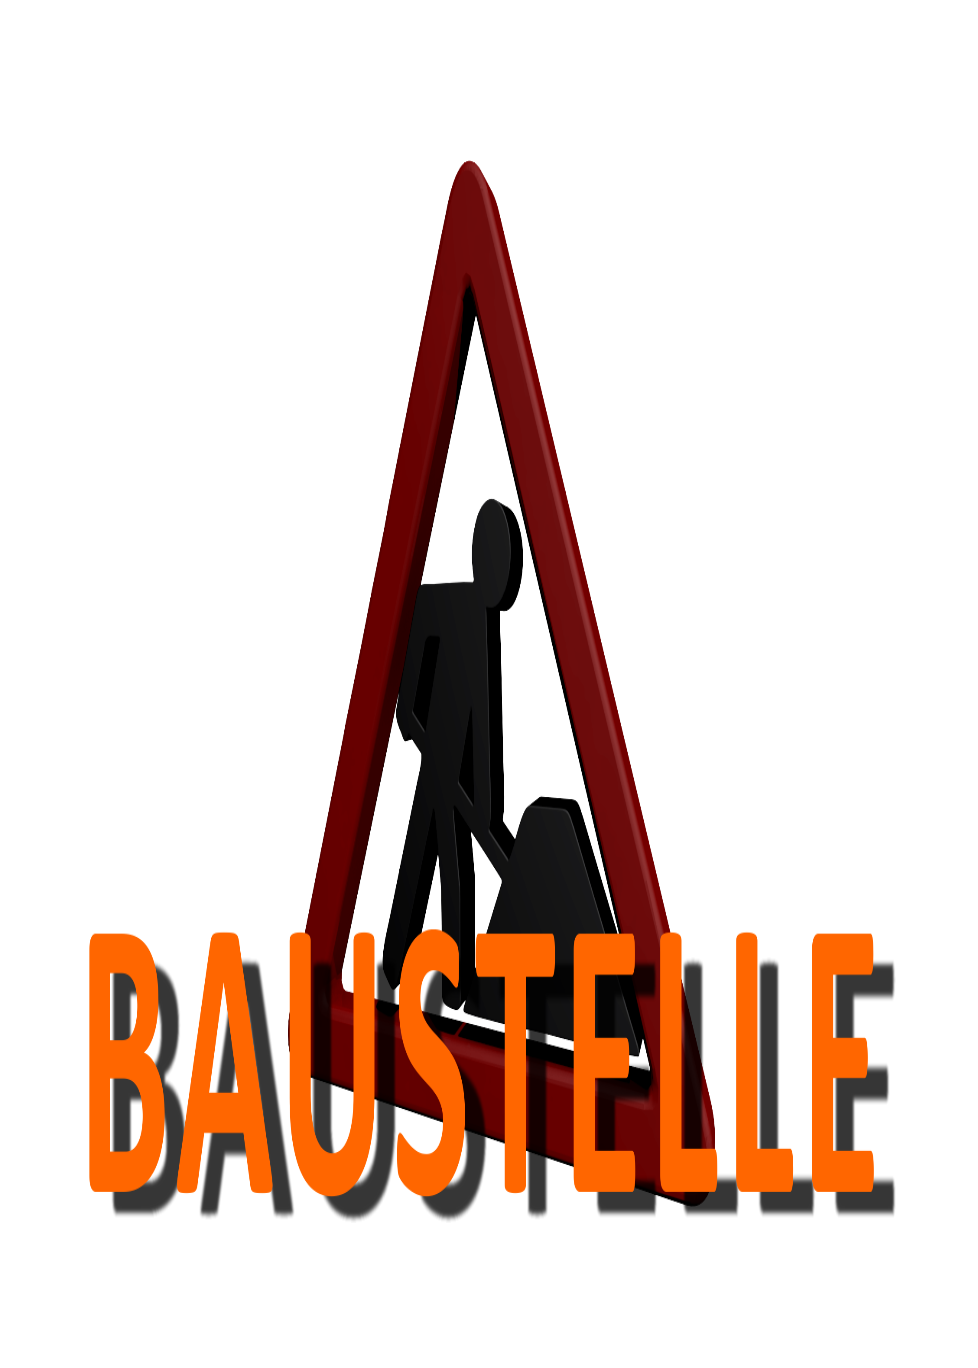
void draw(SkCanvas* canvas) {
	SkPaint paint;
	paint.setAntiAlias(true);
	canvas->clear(0xffffffff);
	canvas->drawImageRect(SkImages::DeferredFromEncodedData(SkData::MakeFromFileName("img1.png")), SkRect::MakeXYWH(89, 160, 807, 1063), SkSamplingOptions());
}
